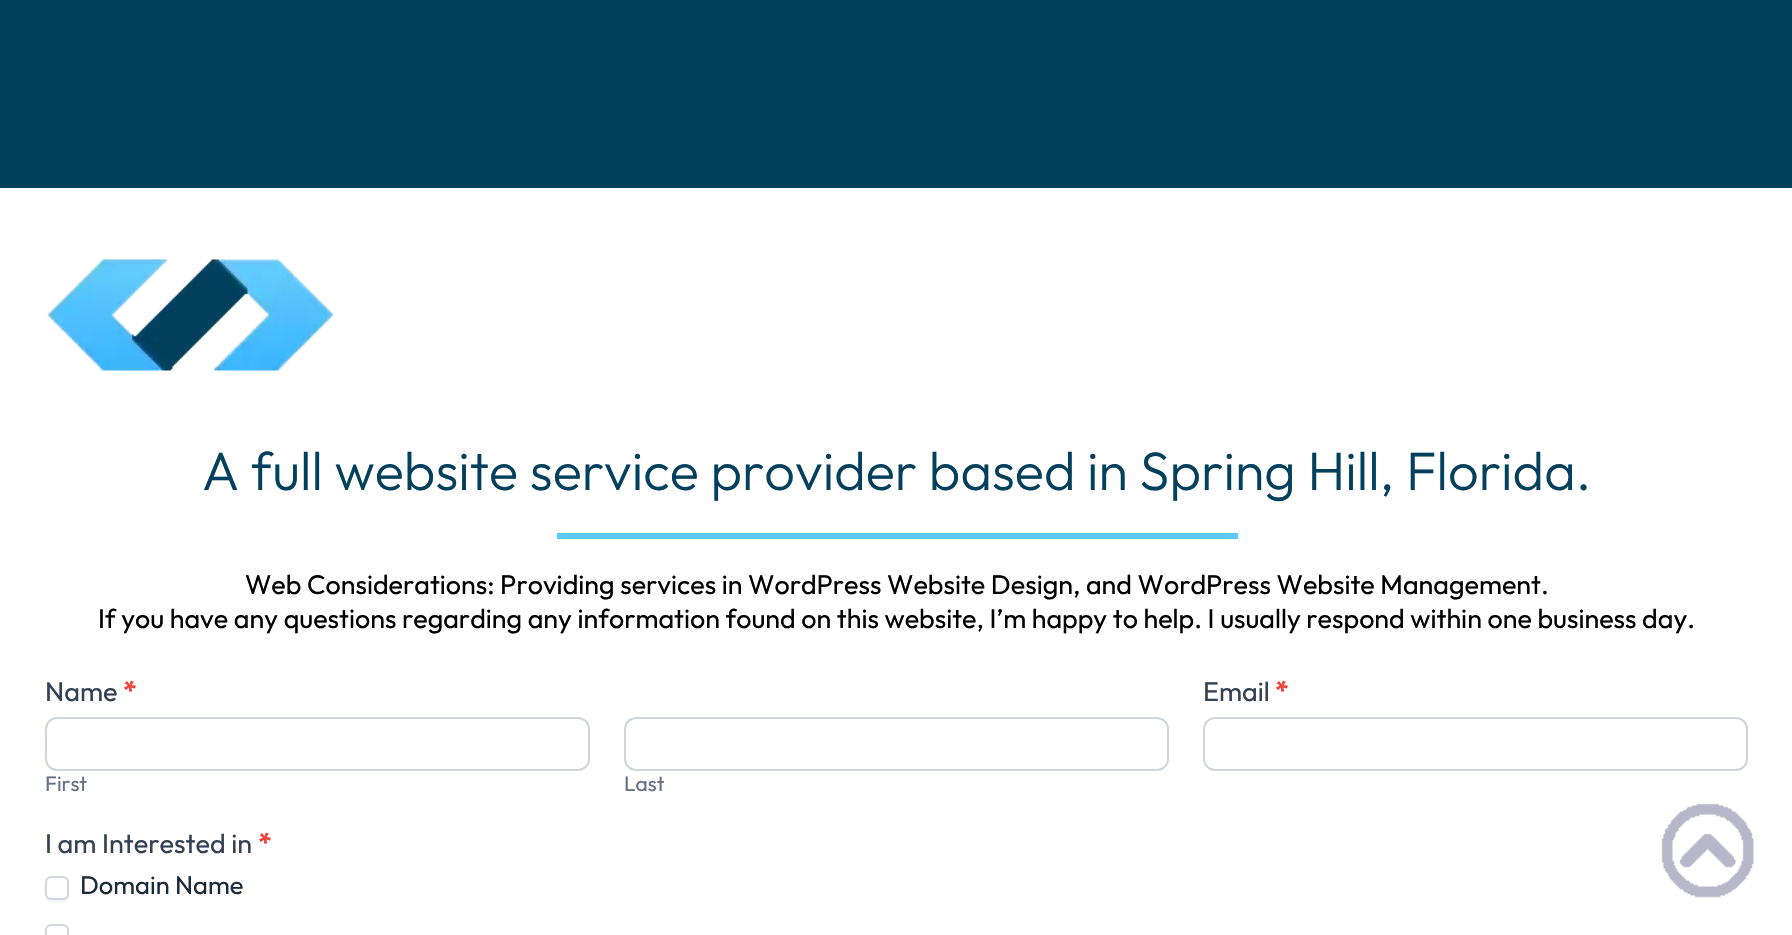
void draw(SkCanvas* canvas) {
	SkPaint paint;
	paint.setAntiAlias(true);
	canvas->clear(0xffffffff);
	paint.setColor(0xff03405d);
	canvas->drawRect(SkRect::MakeXYWH(0, 0, 1792, 188), paint);
	canvas->drawImageRect(SkImages::DeferredFromEncodedData(SkData::MakeFromFileName("img1.png")), SkRect::MakeXYWH(47, 259, 287, 112), SkSamplingOptions());
	SkFont f1(fontMgr->matchFamilyStyle("Outfit", SkFontStyle(300, SkFontStyle::kNormal_Width, SkFontStyle::kUpright_Slant)), 54);
	f1.setSubpixel(true);
	canvas->drawString("A full website service provider based in Spring Hill, Florida.", 202, 490, f1, paint);
	paint.setColor(0xff5cc7fe);
	canvas->drawRect(SkRect::MakeXYWH(557, 533, 681, 6), paint);
	SkFont f2(fontMgr->matchFamilyStyle("Outfit", SkFontStyle::Normal()), 26.88);
	f2.setSubpixel(true);
	paint.setColor(0xff000000);
	canvas->drawString("Web Considerations: Providing services in WordPress Website Design, and WordPress Website Management.", 245, 594, f2, paint);
	canvas->drawString("If you have any questions regarding any information found on this website, I’m happy to help. I usually respond within one business day.", 98, 628, f2, paint);
	SkFont f3(fontMgr->matchFamilyStyle("Outfit", SkFontStyle::Normal()), 27);
	f3.setSubpixel(true);
	paint.setColor(0xff344054);
	canvas->drawString("Name", 45, 701, f3, paint);
	SkFont f4(fontMgr->matchFamilyStyle("Outfit", SkFontStyle::Bold()), 27);
	f4.setSubpixel(true);
	paint.setColor(0xfff04438);
	canvas->drawString("*", 123, 701, f4, paint);
	paint.setStroke(true);
	paint.setStrokeWidth(2);
	paint.setColor(0xffd0d5dd);
	canvas->drawRoundRect(SkRect::MakeXYWH(46, 718, 543, 52), 11, 11, paint);
	SkFont f5(fontMgr->matchFamilyStyle("Outfit", SkFontStyle::Normal()), 21);
	f5.setSubpixel(true);
	paint.setStroke(false);
	paint.setColor(0xff667085);
	canvas->drawString("First", 45, 791, f5, paint);
	paint.setColor(0xff344054);
	canvas->drawString("Email", 1203, 701, f3, paint);
	paint.setColor(0xfff04438);
	canvas->drawString("*", 1275, 701, f4, paint);
	paint.setStroke(true);
	paint.setColor(0xffd0d5dd);
	canvas->drawRoundRect(SkRect::MakeXYWH(1204, 718, 543, 52), 11, 11, paint);
	canvas->drawRoundRect(SkRect::MakeXYWH(625, 718, 543, 52), 11, 11, paint);
	paint.setStroke(false);
	paint.setColor(0xff667085);
	canvas->drawString("Last", 624, 791, f5, paint);
	paint.setColor(0xff344054);
	canvas->drawString("I am Interested in", 45, 853, f3, paint);
	paint.setColor(0xfff04438);
	canvas->drawString("*", 258, 853, f4, paint);
	paint.setColor(0x0d121217);
	paint.setMaskFilter(SkMaskFilter::MakeBlur(kNormal_SkBlurStyle, 1.5));
	canvas->drawRoundRect(SkRect::MakeXYWH(45, 878, 24, 24), 6, 6, paint);
	paint.setMaskFilter(nullptr);
	paint.setColor(0xffffffff);
	canvas->drawRoundRect(SkRect::MakeXYWH(46, 877, 22, 22), 5, 5, paint);
	paint.setStroke(true);
	paint.setColor(0xffd0d5dd);
	canvas->drawRoundRect(SkRect::MakeXYWH(46, 877, 22, 22), 5, 5, paint);
	SkFont f6(fontMgr->matchFamilyStyle("Outfit", SkFontStyle::Normal()), 25.5);
	f6.setSubpixel(true);
	paint.setStroke(false);
	paint.setColor(0xff1d2939);
	canvas->drawString("Domain Name", 80, 894, f6, paint);
	paint.setStroke(true);
	paint.setColor(0xffd0d5dd);
	canvas->drawRoundRect(SkRect::MakeXYWH(46, 925, 22, 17), 5, 5, paint);
	canvas->drawImageRect(SkImages::DeferredFromEncodedData(SkData::MakeFromFileName("img2.png")), SkRect::MakeXYWH(1661, 803, 93, 95), SkSamplingOptions());
}
